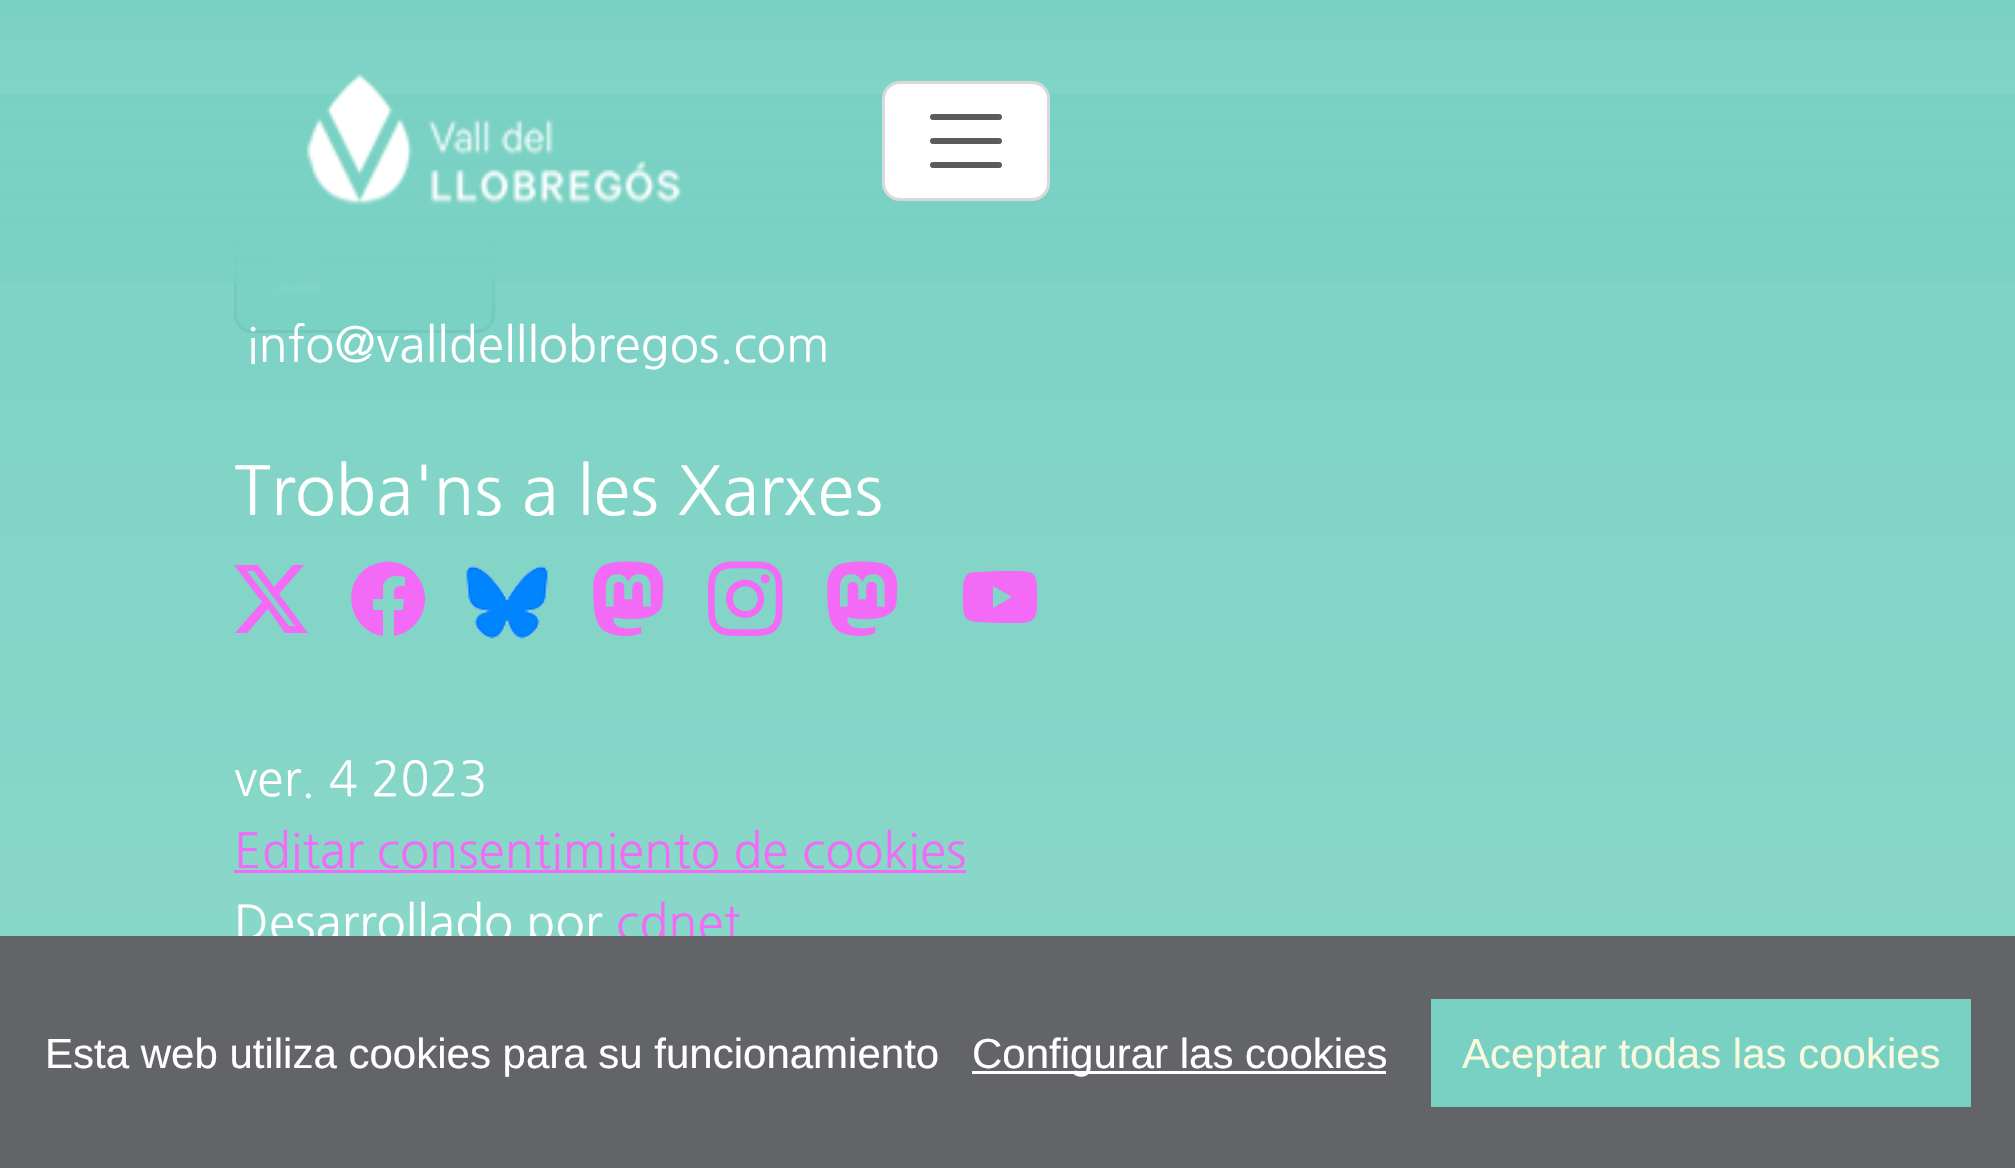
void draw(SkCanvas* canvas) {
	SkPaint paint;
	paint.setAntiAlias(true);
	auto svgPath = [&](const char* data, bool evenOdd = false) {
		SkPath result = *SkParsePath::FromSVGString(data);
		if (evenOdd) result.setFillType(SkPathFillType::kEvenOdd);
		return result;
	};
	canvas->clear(0xffe4feeb);
	paint.setColor(0xff79d1c3);
	canvas->drawRoundRect(SkRect::MakeXYWH(235.5, 220.5, 258, 111), 16.5, 16.5, paint);
	paint.setStroke(true);
	paint.setStrokeWidth(3);
	paint.setColor(0xff000000);
	canvas->drawRoundRect(SkRect::MakeXYWH(235.5, 220.5, 258, 111), 16.5, 16.5, paint);
	canvas->drawImageRect(SkImages::DeferredFromEncodedData(SkData::MakeFromFileName("img2.png")), SkRect::MakeXYWH(273, 257, 48, 38), SkSamplingOptions());
	paint.setStroke(false);
	{
		const SkColor colors[] = {0xffedb1f1, 0xcc79d1c3, 0xff79d1c3};
		const float stops[] = {0, 0, 1};
		const SkPoint ends[] = {{1008, 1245}, {1008, 93}};
		paint.setShader(SkGradientShader::MakeLinear(ends, colors, stops, 3, SkTileMode::kClamp));
		paint.setAlpha(255);
	}
	canvas->drawRect(SkRect::MakeXYWH(0, 93, 2015, 843), paint);
	{
		const SkColor colors[] = {0xffedb1f1, 0xcc79d1c3, 0xff79d1c3};
		const float stops[] = {0, 0, 1};
		const SkPoint ends[] = {{1008, 282}, {1008, 0}};
		paint.setShader(SkGradientShader::MakeLinear(ends, colors, stops, 3, SkTileMode::kClamp));
		paint.setAlpha(255);
	}
	canvas->drawRect(SkRect::MakeXYWH(0, 0, 2015, 282), paint);
	canvas->drawImageRect(SkImages::DeferredFromEncodedData(SkData::MakeFromFileName("img1.png")), SkRect::MakeXYWH(306, 73, 377, 132), SkSamplingOptions());
	paint.setShader(nullptr);
	paint.setColor(0xffffffff);
	canvas->drawRoundRect(SkRect::MakeXYWH(882, 81, 168, 120), 18, 18, paint);
	paint.setStroke(true);
	paint.setColor(0x26000000);
	canvas->drawRoundRect(SkRect::MakeXYWH(883.5, 82.5, 165, 117), 16.5, 16.5, paint);
	paint.setStrokeWidth(6);
	paint.setStrokeCap(SkPaint::kRound_Cap);
	paint.setColor(0xff595c5f);
	canvas->drawPath(svgPath("M933 117H999M933 141H999M933 165H999"), paint);
	SkFont f1(fontMgr->matchFamilyStyle("NanumGothic", SkFontStyle::Normal()), 48);
	f1.setSubpixel(true);
	paint.setStroke(false);
	paint.setColor(0xffffffff);
	canvas->drawString("info@valldelllobregos.com", 247, 362, f1, paint);
	SkFont f2(fontMgr->matchFamilyStyle("NanumGothic", SkFontStyle::Normal()), 67.25);
	f2.setSubpixel(true);
	canvas->drawString("Troba'ns a les Xarxes", 234, 515, f2, paint);
	paint.setColor(0xfff26af5);
	canvas->drawPath(svgPath("M293 565H304L279 594L308 633H285L268 609L247 633H235L262 602L234 565H258L274 587ZM289 626H295L254 571H247Z"), paint);
	canvas->drawPath(svgPath("M425 599C425 587 419 575 409 568C402 563 392 561 383 562C377 563 371 565 365 569C340 589 351 631 383 636V610H373V599H383V586C386 575 396 575 405 577V586C393 586 394 588 394 599H404L403 610H394V636C412 633 425 617 425 599Z"), paint);
	canvas->drawImageRect(SkImages::DeferredFromEncodedData(SkData::MakeFromFileName("img3.png")), SkRect::MakeXYWH(465, 565, 84, 74), SkSamplingOptions());
	canvas->drawImageRect(SkImages::DeferredFromEncodedData(SkData::MakeFromFileName("img4.png")), SkRect::MakeXYWH(593, 561, 71, 76), SkSamplingOptions());
	canvas->drawImageRect(SkImages::DeferredFromEncodedData(SkData::MakeFromFileName("img5.png")), SkRect::MakeXYWH(708, 561, 75, 75), SkSamplingOptions());
	canvas->drawImageRect(SkImages::DeferredFromEncodedData(SkData::MakeFromFileName("img4.png")), SkRect::MakeXYWH(827, 561, 71, 76), SkSamplingOptions());
	canvas->drawPath(svgPath("M1000 571H1022C1025 572 1029 572 1032 573C1038 577 1037 590 1037 597V610C1035 620 1032 622 1022 623H1000L977 622C966 621 964 618 963 607V597C963 590 962 577 969 573C971 572 975 572 977 572ZM993 586V608L1012 597Z"), paint);
	paint.setColor(0xffffffff);
	canvas->drawString("ver. 4 2023", 234, 796, f1, paint);
	paint.setColor(0xfff26af5);
	canvas->drawRect(SkRect::MakeXYWH(234, 870, 732, 3), paint);
	canvas->drawString("Editar consentimiento de cookies", 234, 868, f1, paint);
	paint.setColor(0xffffffff);
	canvas->drawString("Desarrollado por", 234, 940, f1, paint);
	paint.setColor(0xfff26af5);
	canvas->drawString("cdnet", 616, 940, f1, paint);
	paint.setColor(0xff626468);
	canvas->drawRect(SkRect::MakeXYWH(0, 936, 2015, 232), paint);
	SkFont f3(fontMgr->matchFamilyStyle("Liberation Sans", SkFontStyle::Normal()), 42);
	f3.setSubpixel(true);
	paint.setColor(0xffffffff);
	canvas->drawString("Esta web utiliza cookies para su funcionamiento", 45, 1068, f3, paint);
	canvas->drawRect(SkRect::MakeXYWH(972, 1071, 414, 3), paint);
	canvas->drawString("Configurar las cookies", 972, 1068, f3, paint);
	paint.setColor(0xff79d1c3);
	canvas->drawRect(SkRect::MakeXYWH(1431, 999, 540, 108), paint);
	paint.setColor(0xfff9f9de);
	canvas->drawString("Aceptar todas las cookies", 1462, 1068, f3, paint);
}
